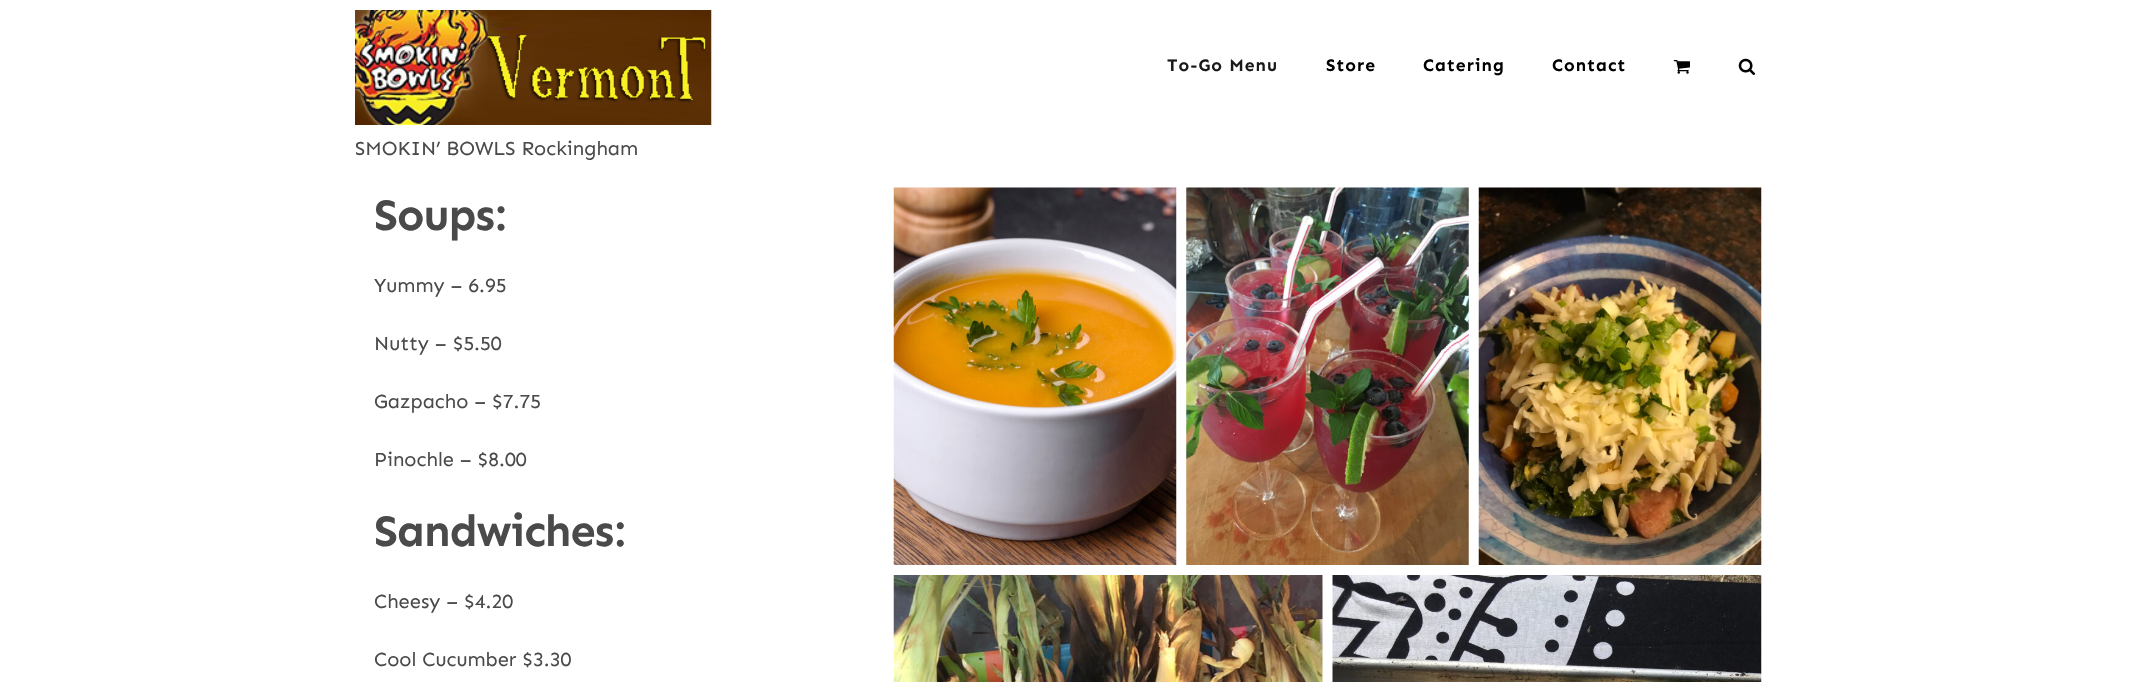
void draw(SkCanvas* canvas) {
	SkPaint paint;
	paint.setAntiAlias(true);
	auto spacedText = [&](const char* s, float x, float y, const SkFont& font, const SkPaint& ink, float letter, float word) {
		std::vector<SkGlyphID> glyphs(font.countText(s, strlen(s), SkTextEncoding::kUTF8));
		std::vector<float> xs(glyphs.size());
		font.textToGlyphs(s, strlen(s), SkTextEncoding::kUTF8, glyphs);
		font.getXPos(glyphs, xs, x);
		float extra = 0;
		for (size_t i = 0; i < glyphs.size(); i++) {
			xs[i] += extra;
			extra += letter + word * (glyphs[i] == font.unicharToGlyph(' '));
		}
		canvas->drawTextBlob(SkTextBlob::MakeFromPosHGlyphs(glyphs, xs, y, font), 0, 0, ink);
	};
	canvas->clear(0xffffffff);
	canvas->drawImageRect(SkImages::DeferredFromEncodedData(SkData::MakeFromFileName("img1.png")), SkRect::MakeXYWH(355, 10, 357, 115), SkSamplingOptions());
	SkFont f1(fontMgr->matchFamilyStyle("Sen", SkFontStyle::Bold()), 17.5);
	f1.setSubpixel(true);
	paint.setColor(0xff1a1a1a);
	spacedText("To-Go Menu", 1167, 71, f1, paint, 1, 0);
	paint.setColor(0xff000000);
	spacedText("Store", 1326, 71, f1, paint, 1, 0);
	spacedText("Catering", 1423, 71, f1, paint, 1, 0);
	spacedText("Contact", 1552, 71, f1, paint, 1, 0);
	canvas->drawImageRect(SkImages::DeferredFromEncodedData(SkData::MakeFromFileName("img2.png")), SkRect::MakeXYWH(1673, 60, 17, 14), SkSamplingOptions());
	canvas->drawImageRect(SkImages::DeferredFromEncodedData(SkData::MakeFromFileName("img3.png")), SkRect::MakeXYWH(1738, 58, 17, 17), SkSamplingOptions());
	SkFont f2(fontMgr->matchFamilyStyle("Sen", SkFontStyle::Normal()), 20);
	f2.setSubpixel(true);
	paint.setColor(0xff4a4a4a);
	canvas->drawString("SMOKIN’ BOWLS Rockingham", 355, 155, f2, paint);
	SkFont f3(fontMgr->matchFamilyStyle("Sen", SkFontStyle::Bold()), 45);
	f3.setSubpixel(true);
	spacedText("Soups:", 374, 230, f3, paint, -1, 0);
	canvas->drawString("Yummy – 6.95", 374, 292, f2, paint);
	canvas->drawString("Nutty – $5.50", 374, 350, f2, paint);
	canvas->drawString("Gazpacho – $7.75", 374, 408, f2, paint);
	canvas->drawString("Pinochle – $8.00", 374, 466, f2, paint);
	spacedText("Sandwiches:", 374, 546, f3, paint, -1, 0);
	canvas->drawString("Cheesy – $4.20", 374, 608, f2, paint);
	canvas->drawString("Cool Cucumber $3.30", 374, 666, f2, paint);
	canvas->drawImageRect(SkImages::DeferredFromEncodedData(SkData::MakeFromFileName("img4.png")), SkRect::MakeXYWH(893, 187, 284, 378), SkSamplingOptions());
	canvas->drawImageRect(SkImages::DeferredFromEncodedData(SkData::MakeFromFileName("img5.png")), SkRect::MakeXYWH(1186, 187, 283, 378), SkSamplingOptions());
	canvas->drawImageRect(SkImages::DeferredFromEncodedData(SkData::MakeFromFileName("img6.png")), SkRect::MakeXYWH(1478, 187, 284, 378), SkSamplingOptions());
	canvas->drawImageRect(SkImages::DeferredFromEncodedData(SkData::MakeFromFileName("img7.png")), SkRect::MakeXYWH(893, 575, 430, 107), SkSamplingOptions());
	canvas->drawImageRect(SkImages::DeferredFromEncodedData(SkData::MakeFromFileName("img8.png")), SkRect::MakeXYWH(1332, 575, 430, 107), SkSamplingOptions());
}
